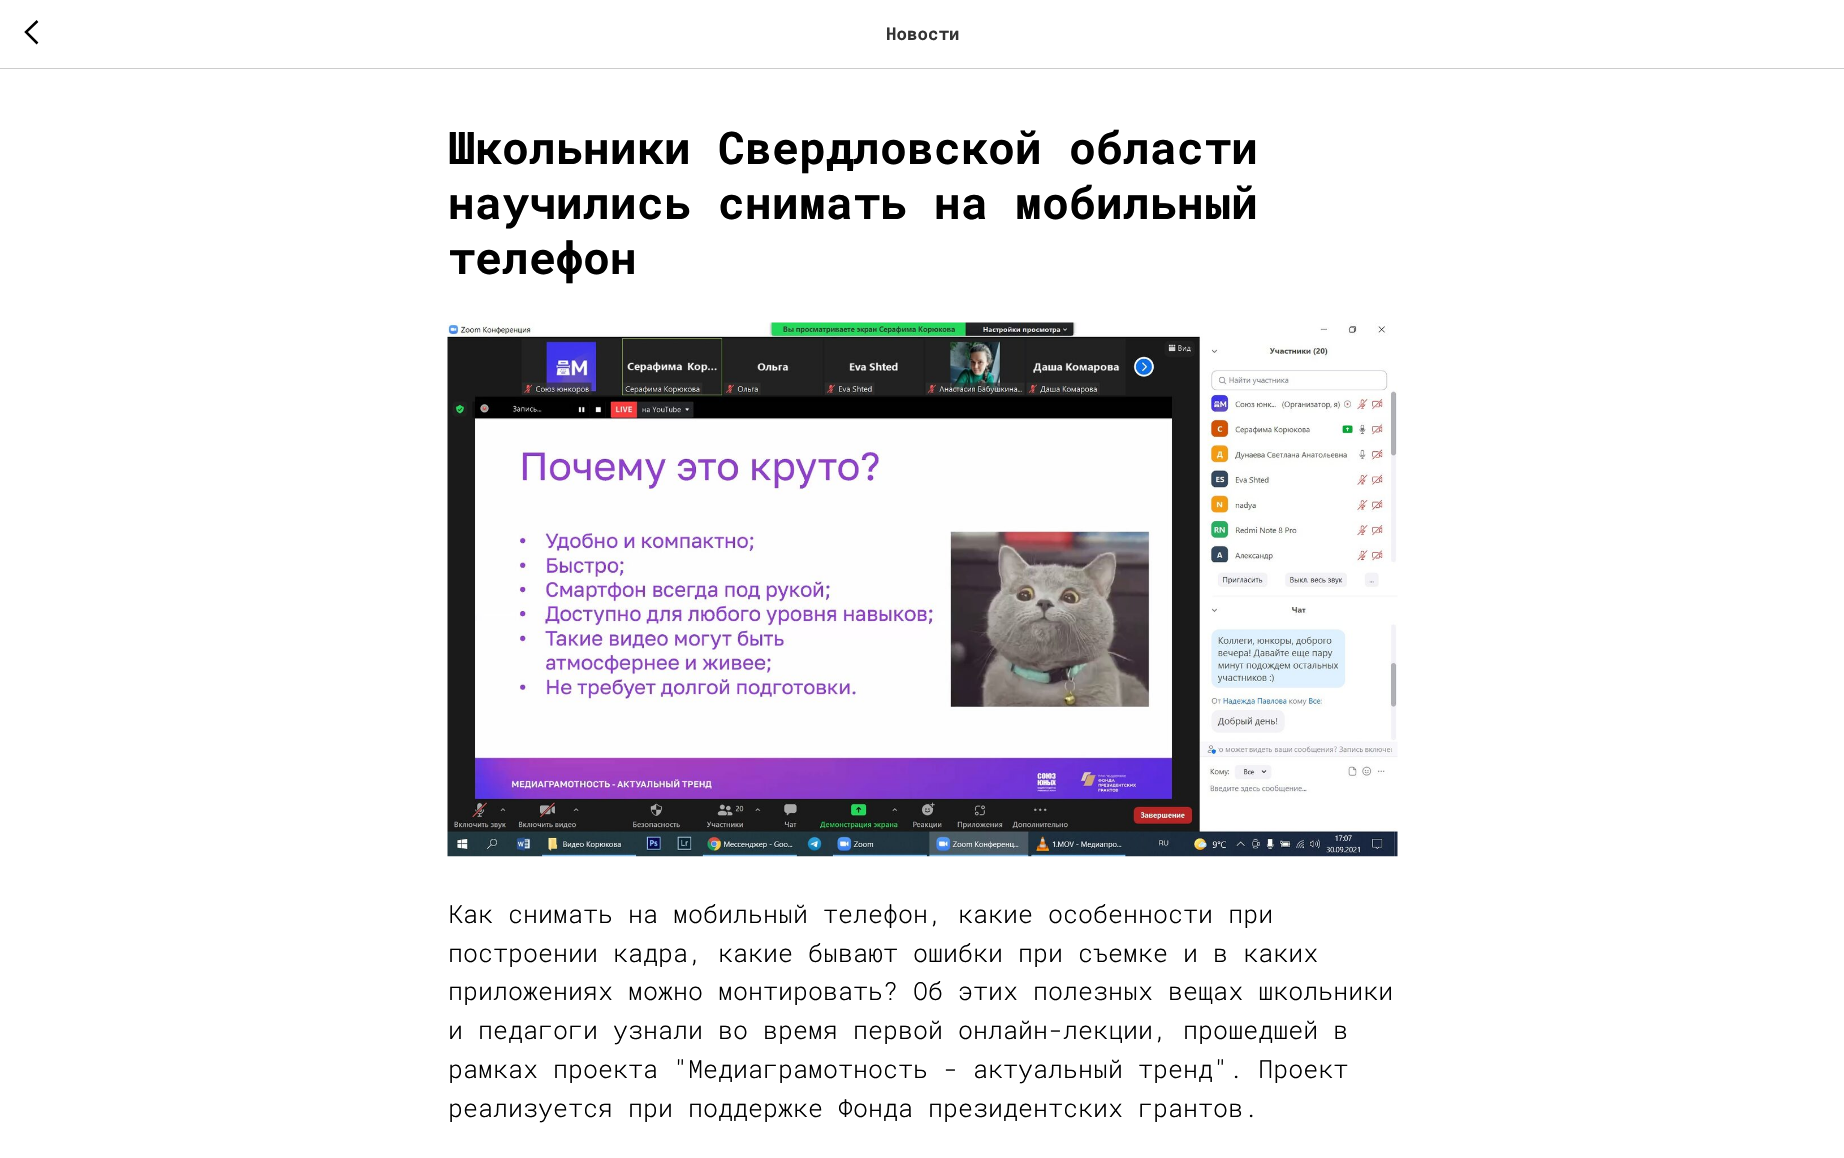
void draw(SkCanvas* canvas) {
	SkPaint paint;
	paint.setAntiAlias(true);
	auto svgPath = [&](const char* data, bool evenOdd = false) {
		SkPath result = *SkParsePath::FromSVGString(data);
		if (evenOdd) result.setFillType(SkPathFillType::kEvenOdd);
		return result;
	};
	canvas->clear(0xffffffff);
	paint.setColor(0xffcccccc);
	canvas->drawRect(SkRect::MakeXYWH(0, 68, 1844, 1), paint);
	paint.setStroke(true);
	paint.setStrokeWidth(2.5);
	paint.setColor(0xff000000);
	canvas->drawPath(svgPath("M37.5 43.5L26 32L37.5 21"), paint);
	SkFont f1(fontMgr->matchFamilyStyle("Roboto Mono", SkFontStyle::Bold()), 17.5);
	f1.setSubpixel(true);
	paint.setStroke(false);
	paint.setColor(0xff333333);
	canvas->drawString("Новости", 886, 40, f1, paint);
	SkFont f2(fontMgr->matchFamilyStyle("Roboto Mono", SkFontStyle::Bold()), 45);
	f2.setSubpixel(true);
	paint.setColor(0xff000000);
	canvas->drawString("Школьники Свердловской области", 448, 164, f2, paint);
	canvas->drawString("научились снимать на мобильный", 448, 219, f2, paint);
	canvas->drawString("телефон", 448, 274, f2, paint);
	canvas->drawImageRect(SkImages::DeferredFromEncodedData(SkData::MakeFromFileName("img1.png")), SkRect::MakeXYWH(447, 322, 951, 535), SkSamplingOptions());
	SkFont f3(fontMgr->matchFamilyStyle("Roboto Mono", SkFontStyle(300, SkFontStyle::kNormal_Width, SkFontStyle::kUpright_Slant)), 25);
	f3.setSubpixel(true);
	canvas->drawString("Как снимать на мобильный телефон, какие особенности при", 448, 923, f3, paint);
	canvas->drawString("построении кадра, какие бывают ошибки при съемке и в каких", 448, 962, f3, paint);
	canvas->drawString("приложениях можно монтировать? Об этих полезных вещах школьники", 448, 1000, f3, paint);
	canvas->drawString("и педагоги узнали во время первой онлайн-лекции, прошедшей в", 448, 1039, f3, paint);
	canvas->drawString("рамках проекта \"Медиаграмотность - актуальный тренд\". Проект", 448, 1078, f3, paint);
	canvas->drawString("реализуется при поддержке Фонда президентских грантов.", 448, 1117, f3, paint);
}
